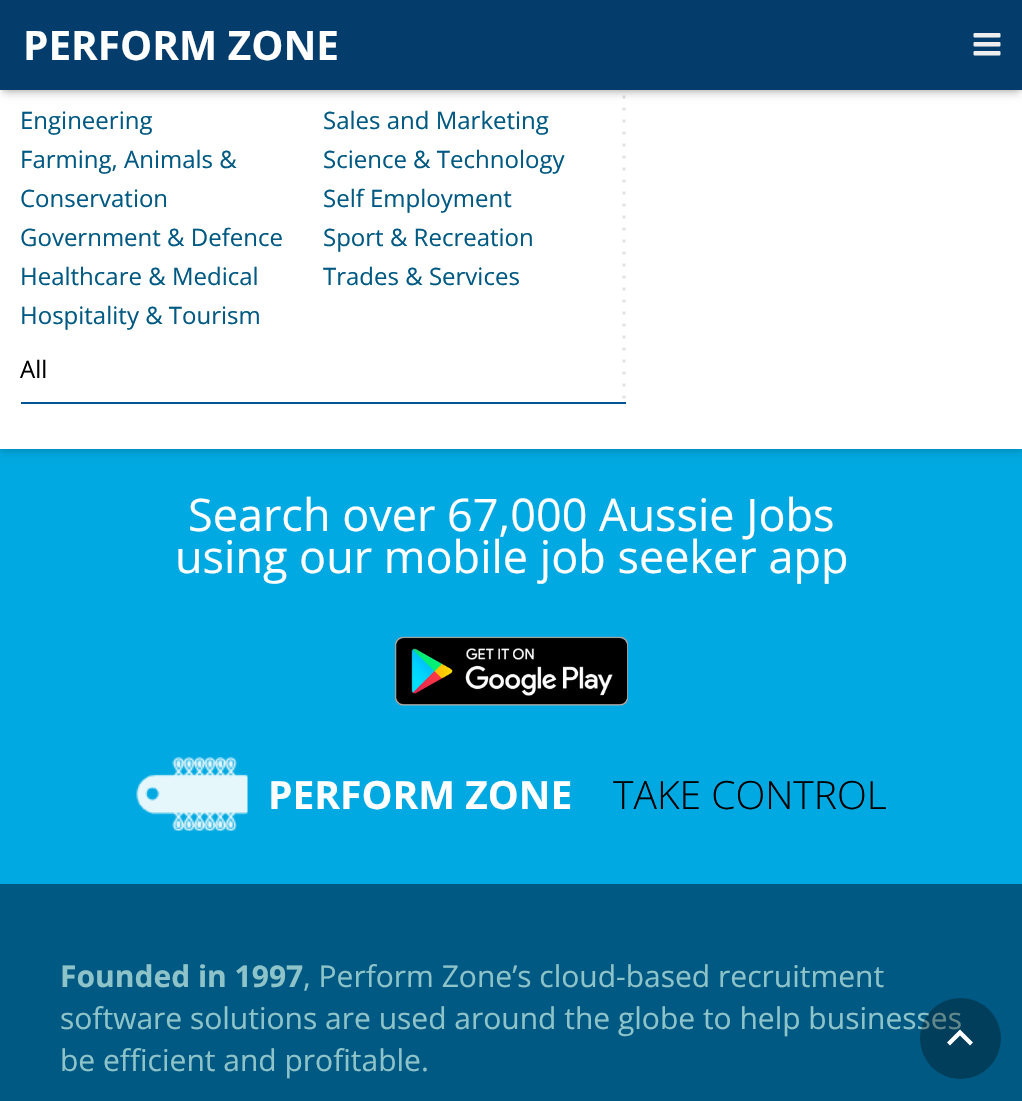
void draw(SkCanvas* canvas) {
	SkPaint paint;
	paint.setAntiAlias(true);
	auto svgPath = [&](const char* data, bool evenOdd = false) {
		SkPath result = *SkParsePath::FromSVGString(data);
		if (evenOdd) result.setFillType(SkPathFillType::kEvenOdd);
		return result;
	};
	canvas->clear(0xff00a9e1);
	paint.setColor(0x26000000);
	paint.setMaskFilter(SkMaskFilter::MakeBlur(kNormal_SkBlurStyle, 4));
	canvas->drawRect(SkRect::MakeXYWH(0, -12, 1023, 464), paint);
	paint.setMaskFilter(nullptr);
	paint.setColor(0x0d000000);
	paint.setMaskFilter(SkMaskFilter::MakeBlur(kNormal_SkBlurStyle, 1));
	canvas->drawRect(SkRect::MakeXYWH(0, -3, 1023, 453), paint);
	paint.setMaskFilter(nullptr);
	paint.setColor(0xffffffff);
	canvas->drawRect(SkRect::MakeXYWH(0, 90, 1022, 359), paint);
	canvas->drawImageRect(SkImages::DeferredFromEncodedData(SkData::MakeFromFileName("img2.png")), SkRect::MakeXYWH(622, 95, 4, 304), SkSamplingOptions());
	paint.setColor(0x0d000000);
	paint.setMaskFilter(SkMaskFilter::MakeBlur(kNormal_SkBlurStyle, 1));
	canvas->drawRect(SkRect::MakeXYWH(2, 5, 1020, 87), paint);
	paint.setMaskFilter(nullptr);
	paint.setColor(0x38000000);
	paint.setMaskFilter(SkMaskFilter::MakeBlur(kNormal_SkBlurStyle, 4));
	canvas->drawRect(SkRect::MakeXYWH(3, 9, 1017, 84), paint);
	paint.setMaskFilter(nullptr);
	paint.setColor(0xff043d6c);
	canvas->drawRect(SkRect::MakeXYWH(0, 0, 1022, 90), paint);
	SkFont f1(fontMgr->matchFamilyStyle("Open Sans", SkFontStyle::Bold()), 40.5);
	f1.setSubpixel(true);
	paint.setColor(0xffffffff);
	canvas->drawString("PERFORM ZONE", 23, 60, f1, paint);
	canvas->drawImageRect(SkImages::DeferredFromEncodedData(SkData::MakeFromFileName("img1.png")), SkRect::MakeXYWH(973, 33, 28, 23), SkSamplingOptions());
	SkFont f2(fontMgr->matchFamilyStyle("Open Sans", SkFontStyle::Normal()), 24);
	f2.setSubpixel(true);
	paint.setColor(0xff005982);
	canvas->drawString("Engineering", 20, 129, f2, paint);
	canvas->drawString("Farming, Animals &", 20, 168, f2, paint);
	canvas->drawString("Conservation", 20, 207, f2, paint);
	canvas->drawString("Government & Defence", 20, 246, f2, paint);
	canvas->drawString("Healthcare & Medical", 20, 285, f2, paint);
	canvas->drawString("Hospitality & Tourism", 20, 324, f2, paint);
	canvas->drawString("Sales and Marketing", 323, 129, f2, paint);
	canvas->drawString("Science & Technology", 323, 168, f2, paint);
	canvas->drawString("Self Employment", 323, 207, f2, paint);
	canvas->drawString("Sport & Recreation", 323, 246, f2, paint);
	canvas->drawString("Trades & Services", 323, 285, f2, paint);
	paint.setColor(0xff005599);
	canvas->drawRect(SkRect::MakeXYWH(21, 402, 605, 2), paint);
	paint.setColor(0xff000000);
	canvas->drawString("All", 20, 378, f2, paint);
	SkFont f3(fontMgr->matchFamilyStyle("Open Sans", SkFontStyle::Normal()), 45);
	f3.setSubpixel(true);
	paint.setColor(0xffffffff);
	canvas->drawString("Search over 67,000 Aussie Jobs", 188, 531, f3, paint);
	canvas->drawString("using our mobile job seeker app", 175, 573, f3, paint);
	canvas->drawImageRect(SkImages::DeferredFromEncodedData(SkData::MakeFromFileName("img3.png")), SkRect::MakeXYWH(395, 636, 233, 70), SkSamplingOptions());
	canvas->drawImageRect(SkImages::DeferredFromEncodedData(SkData::MakeFromFileName("img4.png")), SkRect::MakeXYWH(136, 757, 112, 74), SkSamplingOptions());
	SkFont f4(fontMgr->matchFamilyStyle("Open Sans", SkFontStyle::Bold()), 39);
	f4.setSubpixel(true);
	canvas->drawString("PERFORM ZONE", 268, 809, f4, paint);
	SkFont f5(fontMgr->matchFamilyStyle("Open Sans", SkFontStyle(300, SkFontStyle::kNormal_Width, SkFontStyle::kUpright_Slant)), 39);
	f5.setSubpixel(true);
	paint.setColor(0xff000000);
	canvas->drawString("TAKE CONTROL", 613, 809, f5, paint);
	paint.setColor(0xff005982);
	canvas->drawRect(SkRect::MakeXYWH(0, 884, 1022, 217), paint);
	SkFont f6(fontMgr->matchFamilyStyle("Open Sans", SkFontStyle::Bold()), 30);
	f6.setSubpixel(true);
	paint.setColor(0xff8ec3c9);
	canvas->drawString("Founded in 1997", 60, 987, f6, paint);
	SkFont f7(fontMgr->matchFamilyStyle("Open Sans", SkFontStyle::Normal()), 30);
	f7.setSubpixel(true);
	canvas->drawString(", Perform Zone’s cloud-based recruitment", 303, 987, f7, paint);
	canvas->drawString("software solutions are used around the globe to help businesses", 60, 1029, f7, paint);
	canvas->drawString("be efficient and profitable.", 60, 1071, f7, paint);
	paint.setColor(0x4d000000);
	canvas->drawCircle(960.5, 1038.5, 40.5, paint);
	paint.setColor(0xffffffff);
	canvas->drawPath(svgPath("M960 1029.5L947 1042.5L950 1045.5L960 1035.5L970 1045.5L973 1042.5Z"), paint);
}
